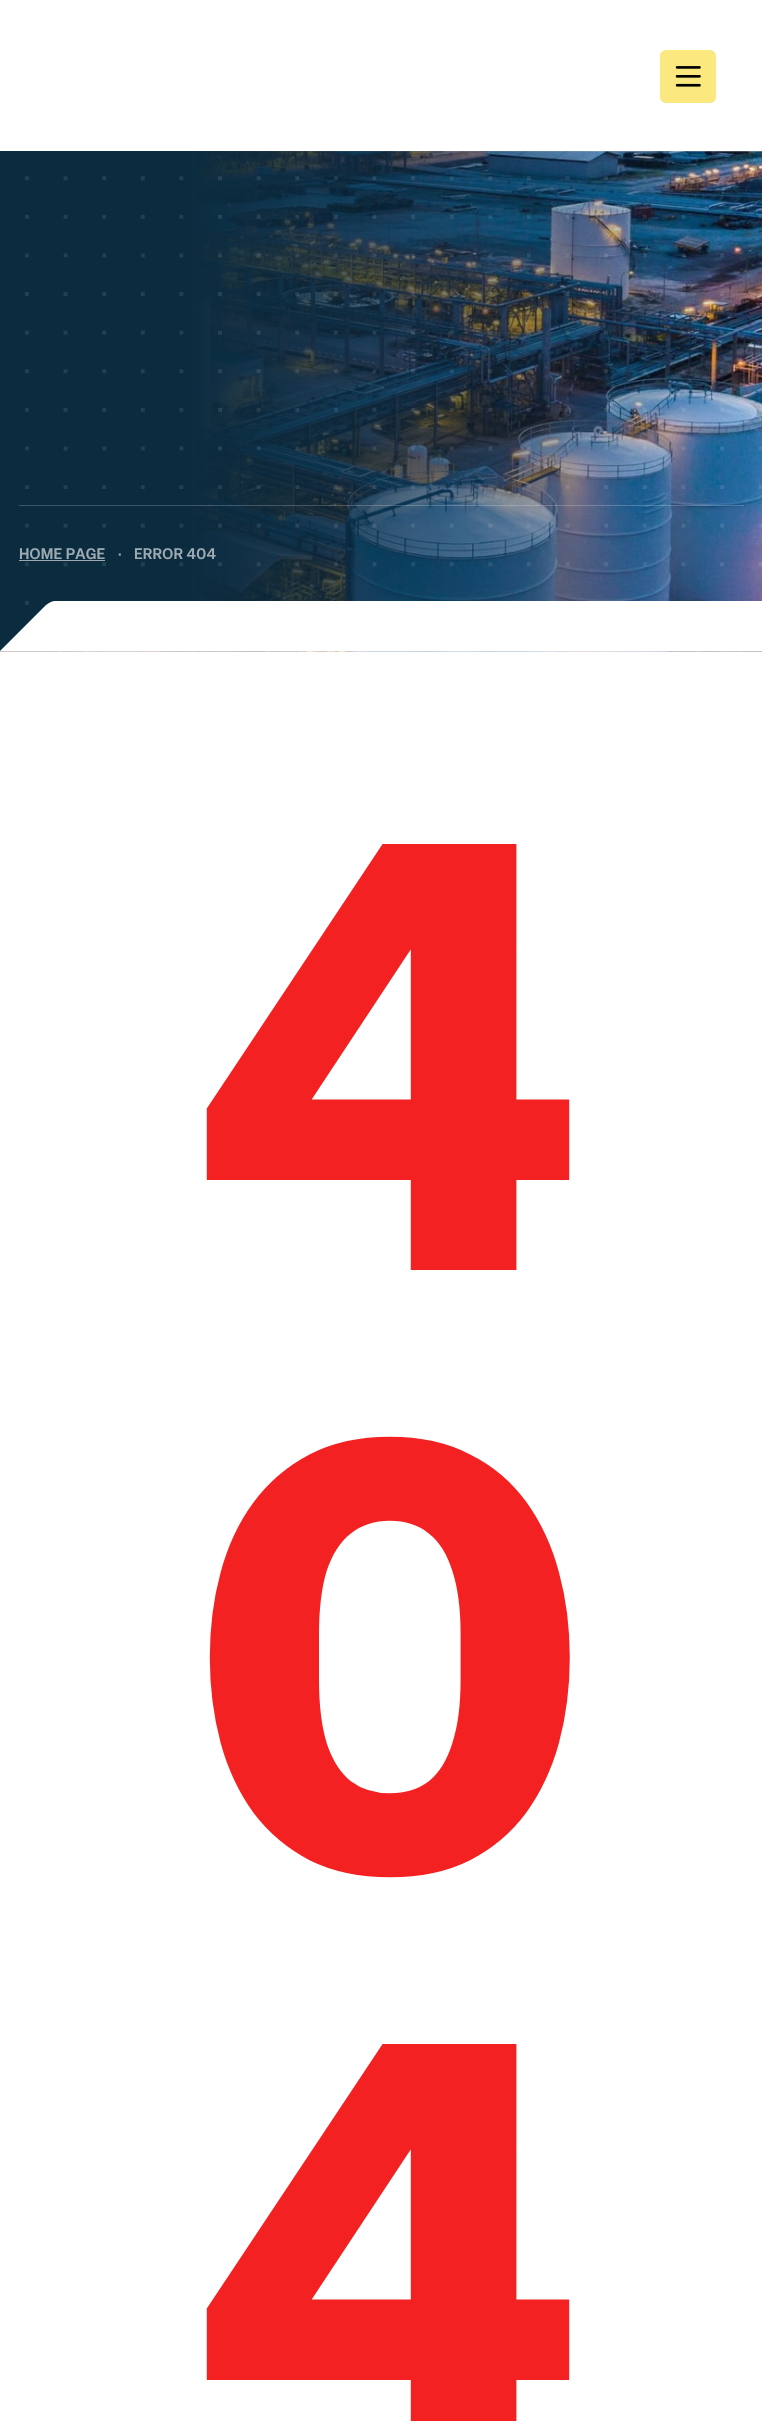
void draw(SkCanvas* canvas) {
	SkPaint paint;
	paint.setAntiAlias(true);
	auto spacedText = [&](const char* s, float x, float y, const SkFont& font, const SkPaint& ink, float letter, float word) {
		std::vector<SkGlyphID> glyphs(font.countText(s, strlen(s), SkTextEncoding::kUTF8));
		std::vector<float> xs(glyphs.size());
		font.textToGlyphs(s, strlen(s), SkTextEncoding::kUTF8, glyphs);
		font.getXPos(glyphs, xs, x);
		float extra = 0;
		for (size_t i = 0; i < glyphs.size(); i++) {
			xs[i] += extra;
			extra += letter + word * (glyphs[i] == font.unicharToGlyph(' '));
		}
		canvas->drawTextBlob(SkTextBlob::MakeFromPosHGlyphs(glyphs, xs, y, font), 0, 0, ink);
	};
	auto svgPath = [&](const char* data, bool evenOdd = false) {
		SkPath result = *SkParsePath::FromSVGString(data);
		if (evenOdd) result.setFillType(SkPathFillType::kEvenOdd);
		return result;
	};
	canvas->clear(0xffffffff);
	paint.setColor(0xfffbe87e);
	canvas->drawRoundRect(SkRect::MakeXYWH(660, 50, 56, 53), 6, 6, paint);
	canvas->drawImageRect(SkImages::DeferredFromEncodedData(SkData::MakeFromFileName("img1.png")), SkRect::MakeXYWH(675, 66, 26, 21), SkSamplingOptions());
	canvas->drawImageRect(SkImages::DeferredFromEncodedData(SkData::MakeFromFileName("img2.png")), SkRect::MakeXYWH(0, 151, 762, 501), SkSamplingOptions());
	{
		const SkColor colors[] = {0xff0b2b3f, 0x000b2b3f};
		const float stops[] = {0.25, 1};
		const SkPoint ends[] = {{0, 1362}, {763, 1362}};
		paint.setShader(SkGradientShader::MakeLinear(ends, colors, stops, 2, SkTileMode::kClamp));
		paint.setAlpha(255);
	}
	canvas->drawRect(SkRect::MakeXYWH(0, 151, 751, 500), paint);
	paint.setShader(nullptr);
	paint.setColor(0xffffffff);
	canvas->drawPath(svgPath("M46 605C49 603 52 601 55 601H762V651H0Z"), paint);
	canvas->drawImageRect(SkImages::DeferredFromEncodedData(SkData::MakeFromFileName("img3.png")), SkRect::MakeXYWH(25, 176, 737, 429), SkSamplingOptions());
	paint.setColor(0x33ffffff);
	canvas->drawRect(SkRect::MakeXYWH(19, 505, 725, 1), paint);
	SkFont f1(fontMgr->matchFamilyStyle("Special Gothic", SkFontStyle(500, SkFontStyle::kNormal_Width, SkFontStyle::kUpright_Slant)), 15);
	f1.setSubpixel(true);
	paint.setColor(0xff9daab2);
	spacedText("HOME PAGE", 19, 559, f1, paint, 0.25, 0);
	canvas->drawRect(SkRect::MakeXYWH(19, 560, 86, 1), paint);
	spacedText("·", 118, 559, f1, paint, 0.25, 0);
	spacedText("ERROR 404", 134, 559, f1, paint, 0.25, 0);
	SkFont f2(fontMgr->matchFamilyStyle("Special Gothic", SkFontStyle::Bold()), 600);
	f2.setSubpixel(true);
	paint.setColor(0xfff32121);
	spacedText("4", 193, 1270, f2, paint, -18, 0);
	spacedText("0", 190, 1870, f2, paint, -18, 0);
	spacedText("4", 193, 2470, f2, paint, -18, 0);
}
